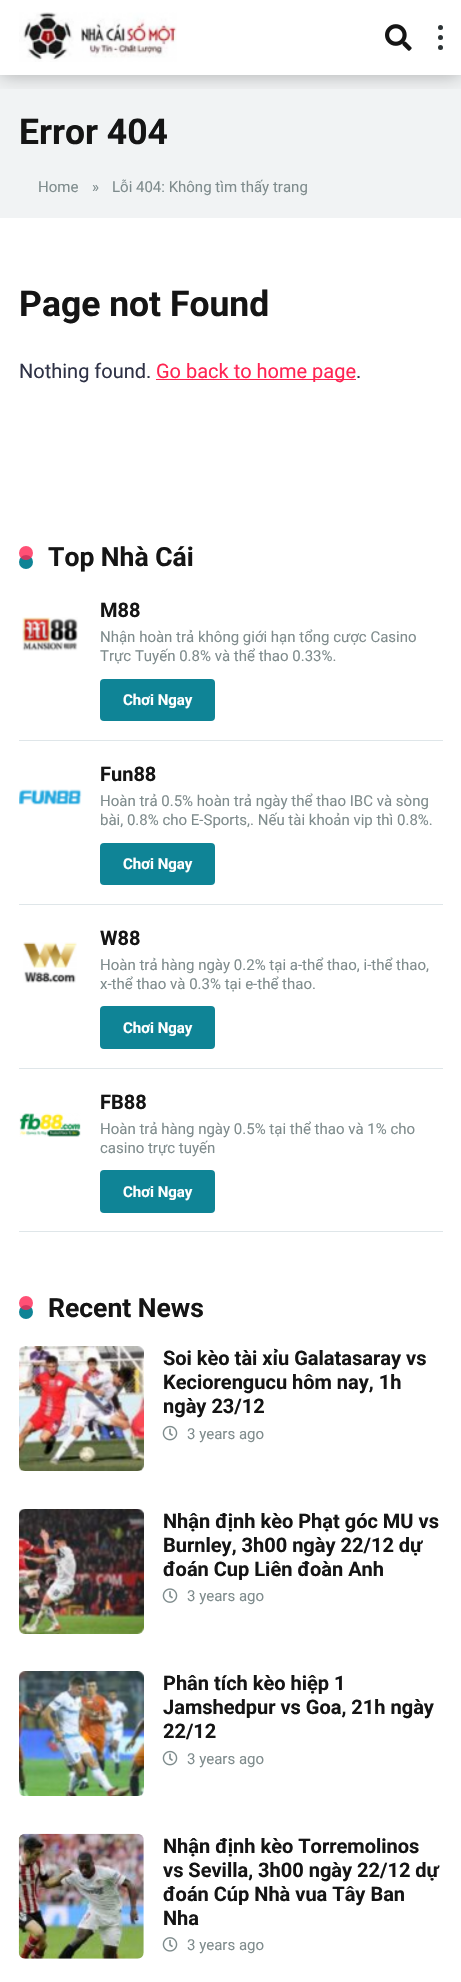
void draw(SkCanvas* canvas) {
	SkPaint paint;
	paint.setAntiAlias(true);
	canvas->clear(0xffffffff);
	paint.setColor(0xfff1f3f4);
	canvas->drawRect(SkRect::MakeXYWH(0, 75, 461, 143), paint);
	canvas->save();
	canvas->clipRect(SkRect::MakeXYWH(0, 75, 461, 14));
	paint.setColor(0x4d000000);
	paint.setMaskFilter(SkMaskFilter::MakeBlur(kNormal_SkBlurStyle, 9.5));
	canvas->drawRect(SkRect::MakeXYWH(0, 0, 461, 75), paint);
	paint.setMaskFilter(nullptr);
	canvas->restore();
	canvas->drawImageRect(SkImages::DeferredFromEncodedData(SkData::MakeFromFileName("img1.png")), SkRect::MakeXYWH(19, 12, 158, 50), SkSamplingOptions());
	canvas->drawImageRect(SkImages::DeferredFromEncodedData(SkData::MakeFromFileName("img2.png")), SkRect::MakeXYWH(385, 24, 27, 27), SkSamplingOptions());
	paint.setColor(0xff2d3436);
	canvas->drawCircle(440.5, 27.5, 2.5, paint);
	canvas->drawCircle(440.5, 37.5, 2.5, paint);
	canvas->drawCircle(440.5, 47.5, 2.5, paint);
	SkFont f1(fontMgr->matchFamilyStyle("Roboto", SkFontStyle::Bold()), 35.5);
	f1.setSubpixel(true);
	paint.setColor(0xff151515);
	canvas->drawString("Error 404", 19, 144, f1, paint);
	SkFont f2(fontMgr->matchFamilyStyle("Roboto", SkFontStyle::Normal()), 15);
	f2.setSubpixel(true);
	paint.setColor(0xff7f8c8d);
	canvas->drawString("Home", 38, 192, f2, paint);
	canvas->drawString("»", 92, 192, f2, paint);
	canvas->drawString("Lỗi 404: Không tìm thấy trang", 112, 192, f2, paint);
	paint.setColor(0xff151515);
	canvas->drawString("Page not Found", 19, 316, f1, paint);
	SkFont f3(fontMgr->matchFamilyStyle("Roboto", SkFontStyle::Normal()), 20);
	f3.setSubpixel(true);
	paint.setColor(0xff2e3246);
	canvas->drawString("Nothing found.", 19, 378, f3, paint);
	paint.setColor(0xffff2453);
	canvas->drawRect(SkRect::MakeXYWH(156, 379, 200, 1), paint);
	canvas->drawString("Go back to home page", 156, 378, f3, paint);
	paint.setColor(0xff2e3246);
	canvas->drawString(".", 356, 378, f3, paint);
	paint.setColor(0xff0f8496);
	canvas->drawCircle(26, 562, 7, paint);
	paint.setColor(0xccff2453);
	canvas->drawCircle(26, 553, 7, paint);
	SkFont f4(fontMgr->matchFamilyStyle("Roboto", SkFontStyle::Bold()), 26.5);
	f4.setSubpixel(true);
	paint.setColor(0xff151515);
	canvas->drawString("Top Nhà Cái", 48, 566, f4, paint);
	paint.setColor(0xffdfe6e9);
	canvas->drawRect(SkRect::MakeXYWH(19, 740, 424, 1), paint);
	canvas->drawImageRect(SkImages::DeferredFromEncodedData(SkData::MakeFromFileName("img3.png")), SkRect::MakeXYWH(22, 617, 56, 34), SkSamplingOptions());
	SkFont f5(fontMgr->matchFamilyStyle("Roboto", SkFontStyle::Bold()), 20);
	f5.setSubpixel(true);
	paint.setColor(0xff151515);
	canvas->drawString("M88", 100, 617, f5, paint);
	paint.setColor(0xff7f8c8d);
	canvas->drawString("Nhận hoàn trả không giới hạn tổng cược Casino", 100, 642, f2, paint);
	canvas->drawString("Trực Tuyến 0.8% và thể thao 0.33%.", 100, 661, f2, paint);
	paint.setColor(0xff0f8496);
	canvas->drawRoundRect(SkRect::MakeXYWH(100, 679, 115, 42), 4, 4, paint);
	SkFont f6(fontMgr->matchFamilyStyle("Roboto", SkFontStyle::Bold()), 15);
	f6.setSubpixel(true);
	paint.setColor(0xffffffff);
	canvas->drawString("Chơi Ngay", 123, 705, f6, paint);
	paint.setColor(0xffdfe6e9);
	canvas->drawRect(SkRect::MakeXYWH(19, 904, 424, 1), paint);
	canvas->drawImageRect(SkImages::DeferredFromEncodedData(SkData::MakeFromFileName("img4.png")), SkRect::MakeXYWH(19, 789, 63, 16), SkSamplingOptions());
	paint.setColor(0xff151515);
	canvas->drawString("Fun88", 100, 781, f5, paint);
	paint.setColor(0xff7f8c8d);
	canvas->drawString("Hoàn trả 0.5% hoàn trả ngày thể thao IBC và sòng", 100, 806, f2, paint);
	canvas->drawString("bài, 0.8% cho E-Sports,. Nếu tài khoản vip thì 0.8%.", 100, 825, f2, paint);
	paint.setColor(0xff0f8496);
	canvas->drawRoundRect(SkRect::MakeXYWH(100, 843, 115, 42), 4, 4, paint);
	paint.setColor(0xffffffff);
	canvas->drawString("Chơi Ngay", 123, 869, f6, paint);
	paint.setColor(0xffdfe6e9);
	canvas->drawRect(SkRect::MakeXYWH(19, 1068, 424, 1), paint);
	canvas->drawImageRect(SkImages::DeferredFromEncodedData(SkData::MakeFromFileName("img5.png")), SkRect::MakeXYWH(23, 942, 54, 41), SkSamplingOptions());
	paint.setColor(0xff151515);
	canvas->drawString("W88", 100, 945, f5, paint);
	paint.setColor(0xff7f8c8d);
	canvas->drawString("Hoàn trả hàng ngày 0.2% tại a-thể thao, i-thể thao,", 100, 970, f2, paint);
	canvas->drawString("x-thể thao và 0.3% tại e-thể thao.", 100, 989, f2, paint);
	paint.setColor(0xff0f8496);
	canvas->drawRoundRect(SkRect::MakeXYWH(100, 1006, 115, 43), 4, 4, paint);
	paint.setColor(0xffffffff);
	canvas->drawString("Chơi Ngay", 123, 1033, f6, paint);
	paint.setColor(0xffdfe6e9);
	canvas->drawRect(SkRect::MakeXYWH(19, 1231, 424, 1), paint);
	canvas->drawImageRect(SkImages::DeferredFromEncodedData(SkData::MakeFromFileName("img6.png")), SkRect::MakeXYWH(19, 1113, 62, 24), SkSamplingOptions());
	paint.setColor(0xff151515);
	canvas->drawString("FB88", 100, 1109, f5, paint);
	paint.setColor(0xff7f8c8d);
	canvas->drawString("Hoàn trả hàng ngày 0.5% tại thể thao và 1% cho", 100, 1134, f2, paint);
	canvas->drawString("casino trực tuyến", 100, 1153, f2, paint);
	paint.setColor(0xff0f8496);
	canvas->drawRoundRect(SkRect::MakeXYWH(100, 1170, 115, 43), 4, 4, paint);
	paint.setColor(0xffffffff);
	canvas->drawString("Chơi Ngay", 123, 1197, f6, paint);
	paint.setColor(0xff0f8496);
	canvas->drawCircle(26, 1312, 7, paint);
	paint.setColor(0xccff2453);
	canvas->drawCircle(26, 1303, 7, paint);
	paint.setColor(0xff151515);
	canvas->drawString("Recent News", 48, 1317, f4, paint);
	canvas->drawImageRect(SkImages::DeferredFromEncodedData(SkData::MakeFromFileName("img7.png")), SkRect::MakeXYWH(19, 1346, 125, 125), SkSamplingOptions());
	canvas->drawString("Soi kèo tài xỉu Galatasaray vs", 163, 1365, f5, paint);
	canvas->drawString("Keciorengucu hôm nay, 1h", 163, 1389, f5, paint);
	canvas->drawString("ngày 23/12", 163, 1413, f5, paint);
	canvas->drawImageRect(SkImages::DeferredFromEncodedData(SkData::MakeFromFileName("img8.png")), SkRect::MakeXYWH(162, 1425, 16, 16), SkSamplingOptions());
	paint.setColor(0xff7f8c8d);
	canvas->drawString("3 years ago", 187, 1439, f2, paint);
	canvas->drawImageRect(SkImages::DeferredFromEncodedData(SkData::MakeFromFileName("img9.png")), SkRect::MakeXYWH(19, 1509, 125, 125), SkSamplingOptions());
	paint.setColor(0xff151515);
	canvas->drawString("Nhận định kèo Phạt góc MU vs", 163, 1528, f5, paint);
	canvas->drawString("Burnley, 3h00 ngày 22/12 dự", 163, 1552, f5, paint);
	canvas->drawString("đoán Cup Liên đoàn Anh", 163, 1576, f5, paint);
	canvas->drawImageRect(SkImages::DeferredFromEncodedData(SkData::MakeFromFileName("img10.png")), SkRect::MakeXYWH(162, 1588, 16, 15), SkSamplingOptions());
	paint.setColor(0xff7f8c8d);
	canvas->drawString("3 years ago", 187, 1601, f2, paint);
	canvas->drawImageRect(SkImages::DeferredFromEncodedData(SkData::MakeFromFileName("img11.png")), SkRect::MakeXYWH(19, 1671, 125, 125), SkSamplingOptions());
	paint.setColor(0xff151515);
	canvas->drawString("Phân tích kèo hiệp 1", 163, 1690, f5, paint);
	canvas->drawString("Jamshedpur vs Goa, 21h ngày", 163, 1714, f5, paint);
	canvas->drawString("22/12", 163, 1738, f5, paint);
	canvas->drawImageRect(SkImages::DeferredFromEncodedData(SkData::MakeFromFileName("img8.png")), SkRect::MakeXYWH(162, 1750, 16, 16), SkSamplingOptions());
	paint.setColor(0xff7f8c8d);
	canvas->drawString("3 years ago", 187, 1764, f2, paint);
	canvas->drawImageRect(SkImages::DeferredFromEncodedData(SkData::MakeFromFileName("img12.png")), SkRect::MakeXYWH(18, 1833, 126, 126), SkSamplingOptions());
	paint.setColor(0xff151515);
	canvas->drawString("Nhận định kèo Torremolinos", 163, 1853, f5, paint);
	canvas->drawString("vs Sevilla, 3h00 ngày 22/12 dự", 163, 1877, f5, paint);
	canvas->drawString("đoán Cúp Nhà vua Tây Ban", 163, 1901, f5, paint);
	canvas->drawString("Nha", 163, 1925, f5, paint);
	canvas->drawImageRect(SkImages::DeferredFromEncodedData(SkData::MakeFromFileName("img13.png")), SkRect::MakeXYWH(162, 1937, 16, 15), SkSamplingOptions());
	paint.setColor(0xff7f8c8d);
	canvas->drawString("3 years ago", 187, 1950, f2, paint);
}
